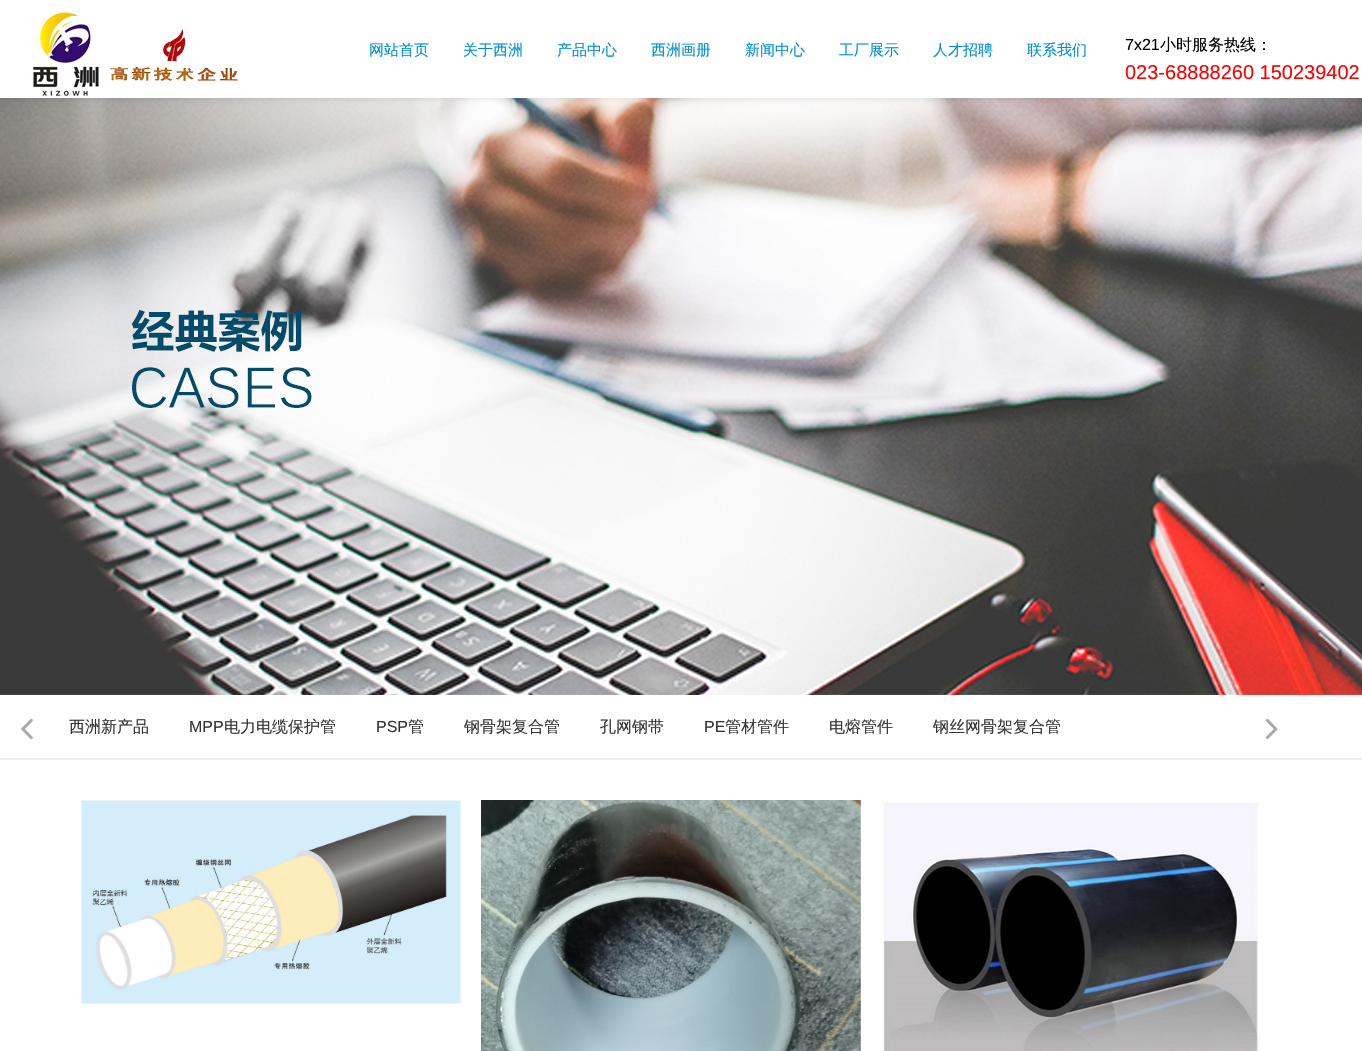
void draw(SkCanvas* canvas) {
	SkPaint paint;
	paint.setAntiAlias(true);
	canvas->clear(0xffffffff);
	canvas->drawImageRect(SkImages::DeferredFromEncodedData(SkData::MakeFromFileName("img2.png")), SkRect::MakeXYWH(0, 98, 1362, 597), SkSamplingOptions());
	paint.setColor(0x14000000);
	paint.setMaskFilter(SkMaskFilter::MakeBlur(kNormal_SkBlurStyle, 2.5));
	canvas->drawRect(SkRect::MakeXYWH(0, 2, 1362, 98), paint);
	paint.setMaskFilter(nullptr);
	paint.setColor(0xffffffff);
	canvas->drawRect(SkRect::MakeXYWH(0, 0, 1362, 98), paint);
	canvas->drawImageRect(SkImages::DeferredFromEncodedData(SkData::MakeFromFileName("img1.png")), SkRect::MakeXYWH(33, 12, 205, 84), SkSamplingOptions());
	SkFont f1(fontMgr->matchFamilyStyle("WenQuanYi Zen Hei", SkFontStyle(500, SkFontStyle::kNormal_Width, SkFontStyle::kUpright_Slant)), 15);
	f1.setSubpixel(true);
	paint.setColor(0xff008ed0);
	canvas->drawString("网站首页", 369, 55, f1, paint);
	canvas->drawString("关于西洲", 463, 55, f1, paint);
	canvas->drawString("产品中心", 557, 55, f1, paint);
	canvas->drawString("西洲画册", 651, 55, f1, paint);
	canvas->drawString("新闻中心", 745, 55, f1, paint);
	canvas->drawString("工厂展示", 839, 55, f1, paint);
	canvas->drawString("人才招聘", 933, 55, f1, paint);
	canvas->drawString("联系我们", 1027, 55, f1, paint);
	SkFont f2(fontMgr->matchFamilyStyle("Liberation Sans", SkFontStyle::Normal()), 16);
	f2.setSubpixel(true);
	paint.setColor(0xff000000);
	canvas->drawString("7x21", 1125, 50, f2, paint);
	SkFont f3(fontMgr->matchFamilyStyle("WenQuanYi Zen Hei", SkFontStyle(500, SkFontStyle::kNormal_Width, SkFontStyle::kUpright_Slant)), 16);
	f3.setSubpixel(true);
	canvas->drawString("小时服务热线：", 1160, 50, f3, paint);
	SkFont f4(fontMgr->matchFamilyStyle("Liberation Sans", SkFontStyle::Normal()), 20);
	f4.setSubpixel(true);
	paint.setColor(0xffff0000);
	canvas->drawString("023-68888260 150239402", 1125, 79, f4, paint);
	paint.setColor(0xffeeeeee);
	canvas->drawRect(SkRect::MakeXYWH(0, 758, 1362, 2), paint);
	canvas->drawImageRect(SkImages::DeferredFromEncodedData(SkData::MakeFromFileName("img3.png")), SkRect::MakeXYWH(21, 718, 12, 22), SkSamplingOptions());
	paint.setColor(0xff333333);
	canvas->drawString("西洲新产品", 69, 732, f3, paint);
	canvas->drawString("MPP", 189, 732, f2, paint);
	canvas->drawString("电力电缆保护管", 224, 732, f3, paint);
	canvas->drawString("PSP", 376, 732, f2, paint);
	canvas->drawString("管", 408, 732, f3, paint);
	canvas->drawString("钢骨架复合管", 464, 732, f3, paint);
	canvas->drawString("孔网钢带", 600, 732, f3, paint);
	canvas->drawString("PE", 704, 732, f2, paint);
	canvas->drawString("管材管件", 725, 732, f3, paint);
	canvas->drawString("电熔管件", 829, 732, f3, paint);
	canvas->drawString("钢丝网骨架复合管", 933, 732, f3, paint);
	canvas->drawImageRect(SkImages::DeferredFromEncodedData(SkData::MakeFromFileName("img4.png")), SkRect::MakeXYWH(1265, 718, 13, 22), SkSamplingOptions());
	canvas->drawImageRect(SkImages::DeferredFromEncodedData(SkData::MakeFromFileName("img5.png")), SkRect::MakeXYWH(81, 800, 380, 204), SkSamplingOptions());
	canvas->drawImageRect(SkImages::DeferredFromEncodedData(SkData::MakeFromFileName("img6.png")), SkRect::MakeXYWH(481, 800, 380, 251), SkSamplingOptions());
	canvas->drawImageRect(SkImages::DeferredFromEncodedData(SkData::MakeFromFileName("img7.png")), SkRect::MakeXYWH(881, 800, 380, 251), SkSamplingOptions());
}
